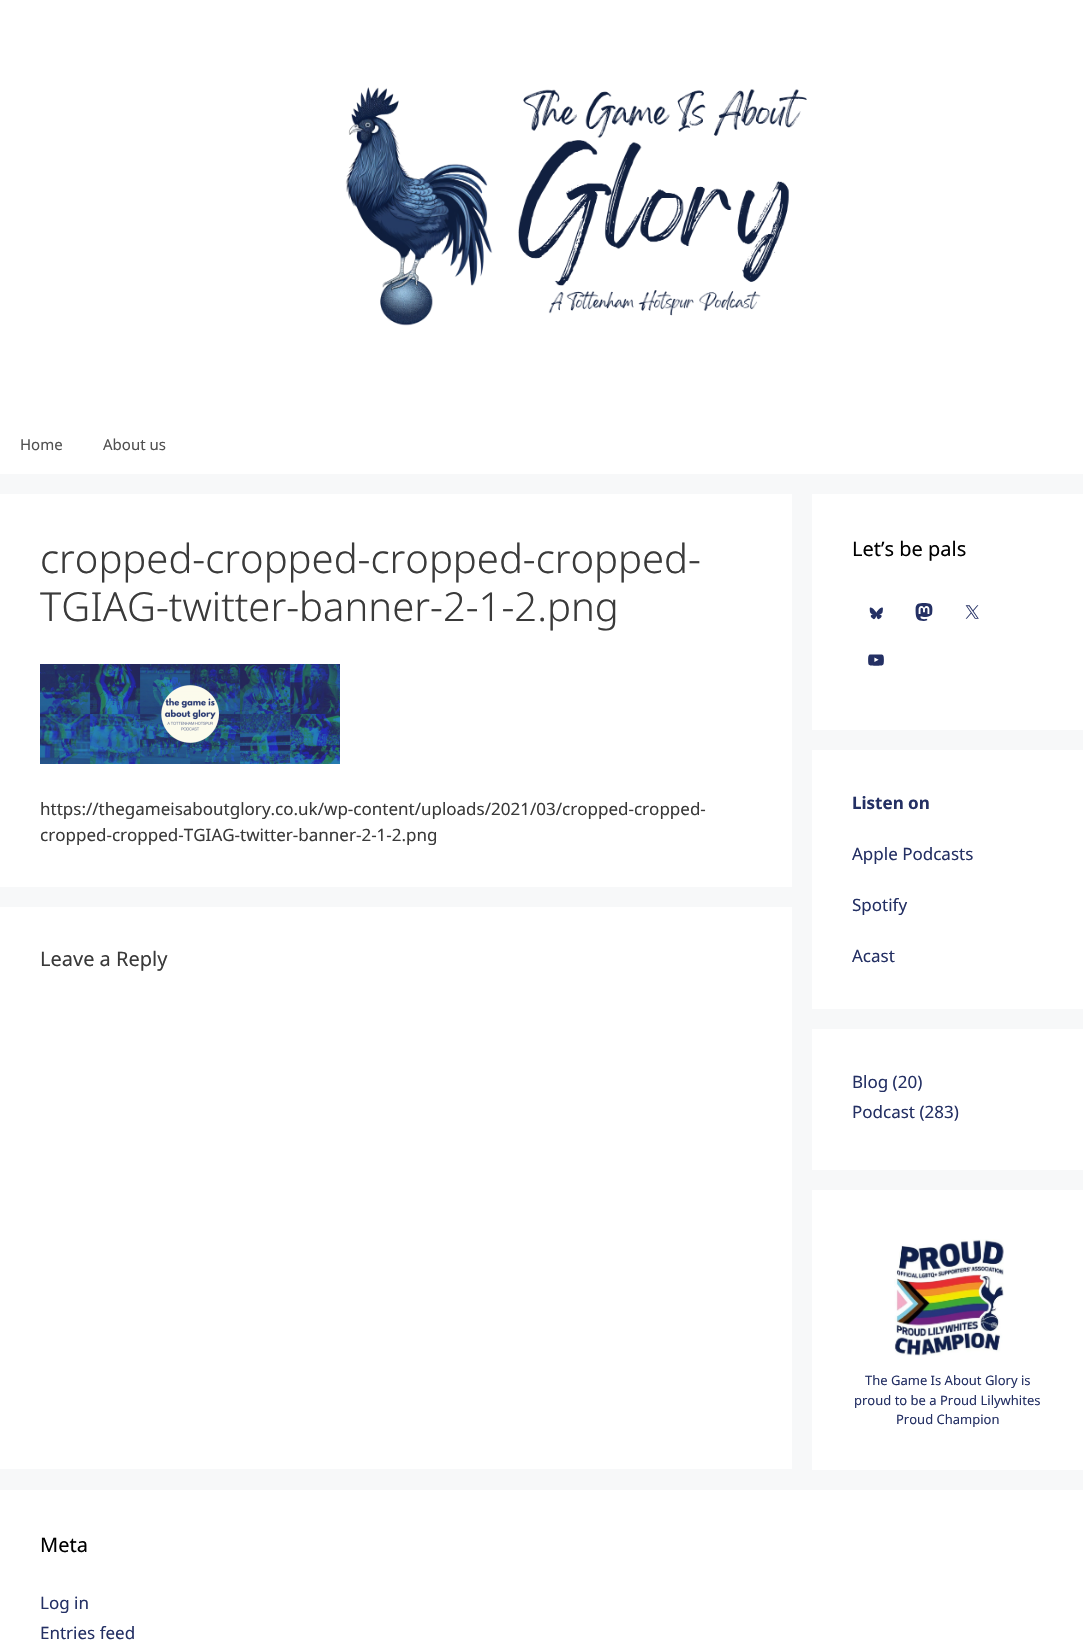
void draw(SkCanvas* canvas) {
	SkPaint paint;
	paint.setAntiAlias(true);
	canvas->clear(0xfff7f8f9);
	paint.setColor(0xffffffff);
	canvas->drawRect(SkRect::MakeXYWH(0, 0, 1083, 474), paint);
	canvas->drawImageRect(SkImages::DeferredFromEncodedData(SkData::MakeFromFileName("img1.png")), SkRect::MakeXYWH(345, 87, 462, 239), SkSamplingOptions());
	SkFont f1(fontMgr->matchFamilyStyle("Noto Sans", SkFontStyle::Normal()), 15);
	f1.setSubpixel(true);
	paint.setColor(0xff515151);
	canvas->drawString("Home", 20, 450, f1, paint);
	canvas->drawString("About us", 103, 450, f1, paint);
	paint.setColor(0xffffffff);
	canvas->drawRect(SkRect::MakeXYWH(0, 494, 792, 393), paint);
	SkFont f2(fontMgr->matchFamilyStyle("Noto Sans", SkFontStyle(300, SkFontStyle::kNormal_Width, SkFontStyle::kUpright_Slant)), 40);
	f2.setSubpixel(true);
	paint.setColor(0xff3a3a3a);
	canvas->drawString("cropped-cropped-cropped-cropped-", 40, 573, f2, paint);
	canvas->drawString("TGIAG-twitter-banner-2-1-2.png", 40, 621, f2, paint);
	canvas->drawImageRect(SkImages::DeferredFromEncodedData(SkData::MakeFromFileName("img2.png")), SkRect::MakeXYWH(40, 664, 300, 100), SkSamplingOptions());
	SkFont f3(fontMgr->matchFamilyStyle("Noto Sans", SkFontStyle::Normal()), 17);
	f3.setSubpixel(true);
	canvas->drawString("https://thegameisaboutglory.co.uk/wp-content/uploads/2021/03/cropped-cropped-", 40, 815, f3, paint);
	canvas->drawString("cropped-cropped-TGIAG-twitter-banner-2-1-2.png", 40, 841, f3, paint);
	paint.setColor(0xffffffff);
	canvas->drawRect(SkRect::MakeXYWH(0, 907, 792, 562), paint);
	SkFont f4(fontMgr->matchFamilyStyle("Noto Sans", SkFontStyle::Normal()), 20);
	f4.setSubpixel(true);
	paint.setColor(0xff3a3a3a);
	canvas->drawString("Leave a Reply", 40, 966, f4, paint);
	paint.setColor(0xffffffff);
	canvas->drawRect(SkRect::MakeXYWH(812, 494, 271, 236), paint);
	paint.setColor(0xff000000);
	canvas->drawString("Let’s be pals", 852, 556, f4, paint);
	canvas->drawImageRect(SkImages::DeferredFromEncodedData(SkData::MakeFromFileName("img3.png")), SkRect::MakeXYWH(869, 607, 14, 13), SkSamplingOptions());
	canvas->drawImageRect(SkImages::DeferredFromEncodedData(SkData::MakeFromFileName("img4.png")), SkRect::MakeXYWH(915, 603, 18, 18), SkSamplingOptions());
	canvas->drawImageRect(SkImages::DeferredFromEncodedData(SkData::MakeFromFileName("img5.png")), SkRect::MakeXYWH(965, 605, 14, 14), SkSamplingOptions());
	canvas->drawImageRect(SkImages::DeferredFromEncodedData(SkData::MakeFromFileName("img6.png")), SkRect::MakeXYWH(868, 654, 16, 12), SkSamplingOptions());
	paint.setColor(0xffffffff);
	canvas->drawRect(SkRect::MakeXYWH(812, 750, 271, 259), paint);
	SkFont f5(fontMgr->matchFamilyStyle("Noto Sans", SkFontStyle::Bold()), 17);
	f5.setSubpixel(true);
	paint.setColor(0xff243064);
	canvas->drawString("Listen on", 852, 809, f5, paint);
	canvas->drawString("Apple Podcasts", 852, 860, f3, paint);
	canvas->drawString("Spotify", 852, 911, f3, paint);
	canvas->drawString("Acast", 852, 962, f3, paint);
	paint.setColor(0xffffffff);
	canvas->drawRect(SkRect::MakeXYWH(812, 1029, 271, 141), paint);
	paint.setColor(0xff243064);
	canvas->drawString("Blog (20)", 852, 1088, f3, paint);
	canvas->drawString("Podcast (283)", 852, 1118, f3, paint);
	paint.setColor(0xffffffff);
	canvas->drawRect(SkRect::MakeXYWH(812, 1190, 271, 280), paint);
	canvas->drawImageRect(SkImages::DeferredFromEncodedData(SkData::MakeFromFileName("img7.png")), SkRect::MakeXYWH(894, 1239, 110, 117), SkSamplingOptions());
	SkFont f6(fontMgr->matchFamilyStyle("Noto Sans", SkFontStyle::Normal()), 13);
	f6.setSubpixel(true);
	paint.setColor(0xff243064);
	canvas->drawString("The Game Is About Glory is", 865, 1385, f6, paint);
	canvas->drawString("proud to be a Proud Lilywhites", 854, 1405, f6, paint);
	canvas->drawString("Proud Champion", 896, 1424, f6, paint);
	paint.setColor(0xffffffff);
	canvas->drawRect(SkRect::MakeXYWH(0, 1490, 1083, 156), paint);
	paint.setColor(0xff000000);
	canvas->drawString("Meta", 40, 1552, f4, paint);
	paint.setColor(0xff243064);
	canvas->drawString("Log in", 40, 1609, f3, paint);
	canvas->drawString("Entries feed", 40, 1639, f3, paint);
}
